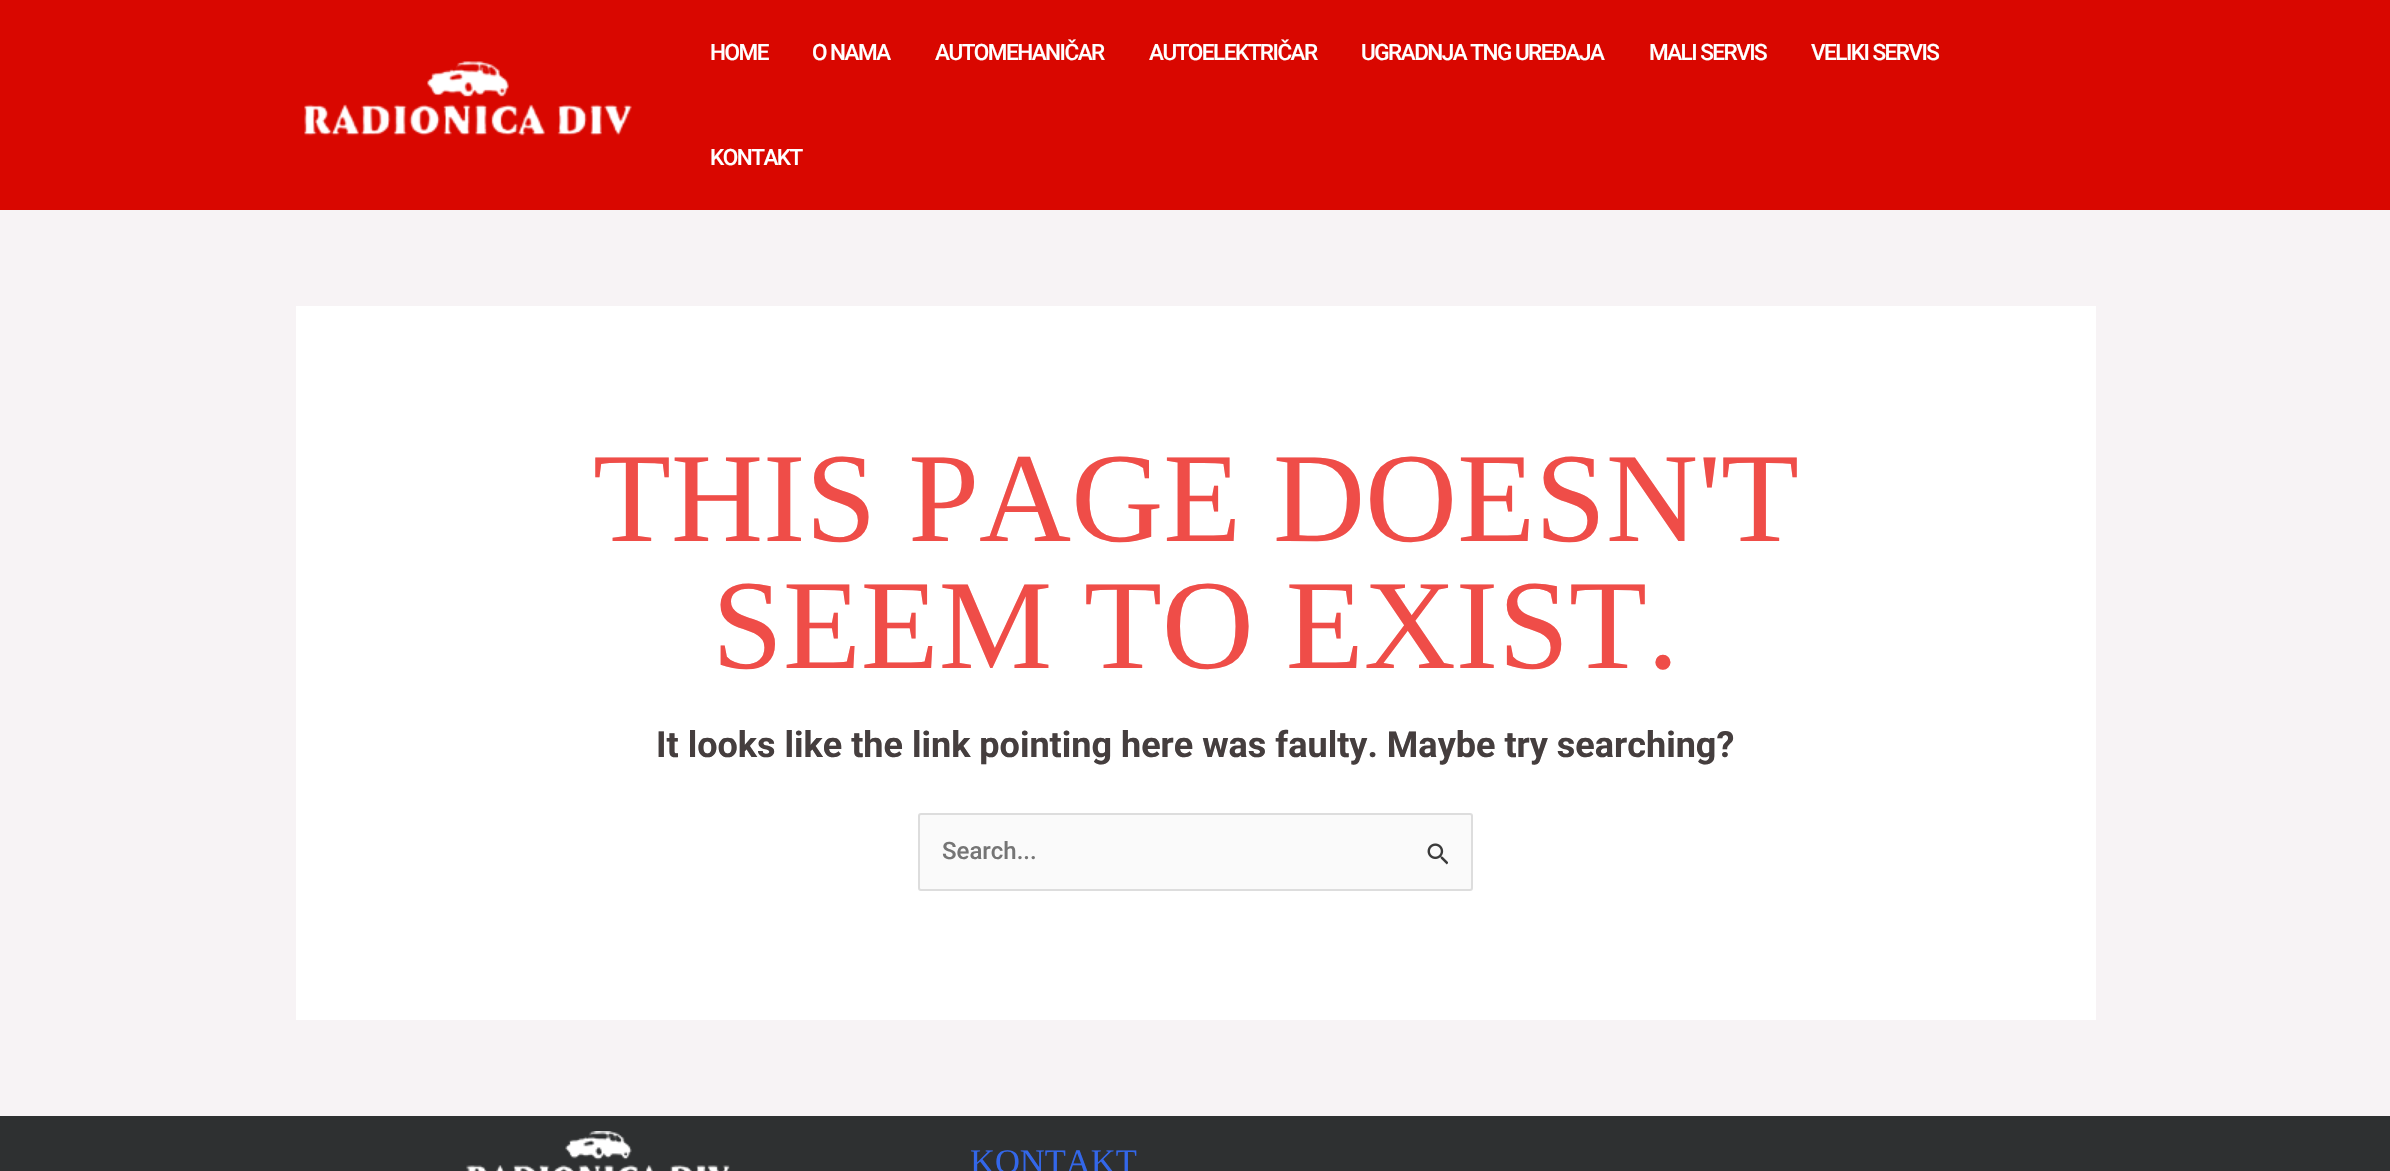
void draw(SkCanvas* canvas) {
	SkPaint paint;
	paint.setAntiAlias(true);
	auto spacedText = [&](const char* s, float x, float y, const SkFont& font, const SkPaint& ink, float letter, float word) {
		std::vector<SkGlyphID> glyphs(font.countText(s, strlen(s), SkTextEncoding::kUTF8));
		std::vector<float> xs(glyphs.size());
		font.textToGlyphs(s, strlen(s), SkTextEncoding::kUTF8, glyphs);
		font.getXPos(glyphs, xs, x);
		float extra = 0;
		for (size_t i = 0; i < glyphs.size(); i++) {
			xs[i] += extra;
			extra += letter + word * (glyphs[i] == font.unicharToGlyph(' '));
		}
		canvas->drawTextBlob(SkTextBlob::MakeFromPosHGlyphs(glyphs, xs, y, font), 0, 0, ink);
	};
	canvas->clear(0xfff7f3f5);
	paint.setColor(0xffd90700);
	canvas->drawRect(SkRect::MakeXYWH(0, 0, 2390, 210), paint);
	canvas->drawImageRect(SkImages::DeferredFromEncodedData(SkData::MakeFromFileName("img1.png")), SkRect::MakeXYWH(304, 61, 328, 75), SkSamplingOptions());
	SkFont f1(fontMgr->matchFamilyStyle("Roboto", SkFontStyle(500, SkFontStyle::kNormal_Width, SkFontStyle::kUpright_Slant)), 22.5);
	f1.setSubpixel(true);
	paint.setColor(0xffffffff);
	spacedText("HOME", 710, 60, f1, paint, -1.5, 0);
	spacedText("O NAMA", 812, 60, f1, paint, -1.5, 0);
	spacedText("AUTOMEHANIČAR", 935, 60, f1, paint, -1.5, 0);
	spacedText("AUTOELEKTRIČAR", 1149, 60, f1, paint, -1.5, 0);
	spacedText("UGRADNJA TNG UREĐAJA", 1361, 60, f1, paint, -1.5, 0);
	spacedText("MALI SERVIS", 1649, 60, f1, paint, -1.5, 0);
	spacedText("VELIKI SERVIS", 1811, 60, f1, paint, -1.5, 0);
	spacedText("KONTAKT", 710, 165, f1, paint, -1.5, 0);
	canvas->drawRect(SkRect::MakeXYWH(296, 306, 1800, 714), paint);
	SkFont f2(fontMgr->matchFamilyStyle("Liberation Serif", SkFontStyle::Normal()), 127.5);
	f2.setSubpixel(true);
	paint.setColor(0xffef4d48);
	canvas->drawString("THIS PAGE DOESN'T", 593, 541, f2, paint);
	canvas->drawString("SEEM TO EXIST.", 712, 668, f2, paint);
	SkFont f3(fontMgr->matchFamilyStyle("Roboto", SkFontStyle::Bold()), 36);
	f3.setSubpixel(true);
	paint.setColor(0xff453e3e);
	canvas->drawString("It looks like the link pointing here was faulty. Maybe try searching?", 656, 757, f3, paint);
	paint.setColor(0xfffafafa);
	canvas->drawRoundRect(SkRect::MakeXYWH(919, 814, 553, 76), 2, 2, paint);
	paint.setStroke(true);
	paint.setStrokeWidth(2);
	paint.setColor(0xffdddddd);
	canvas->drawRoundRect(SkRect::MakeXYWH(919, 814, 553, 76), 2, 2, paint);
	SkFont f4(fontMgr->matchFamilyStyle("Roboto", SkFontStyle(500, SkFontStyle::kNormal_Width, SkFontStyle::kUpright_Slant)), 24);
	f4.setSubpixel(true);
	paint.setStroke(false);
	paint.setColor(0xff757575);
	canvas->drawString("Search...", 942, 859, f4, paint);
	canvas->drawImageRect(SkImages::DeferredFromEncodedData(SkData::MakeFromFileName("img2.png")), SkRect::MakeXYWH(1427, 843, 21, 22), SkSamplingOptions());
	paint.setColor(0xff2e3031);
	canvas->drawRect(SkRect::MakeXYWH(0, 1116, 2390, 55), paint);
	canvas->drawImageRect(SkImages::DeferredFromEncodedData(SkData::MakeFromFileName("img3.png")), SkRect::MakeXYWH(466, 1131, 264, 40), SkSamplingOptions());
	SkFont f5(fontMgr->matchFamilyStyle("Liberation Serif", SkFontStyle::Normal()), 34.5);
	f5.setSubpixel(true);
	paint.setColor(0xff3367ea);
	canvas->drawString("KONTAKT", 970, 1173, f5, paint);
}
